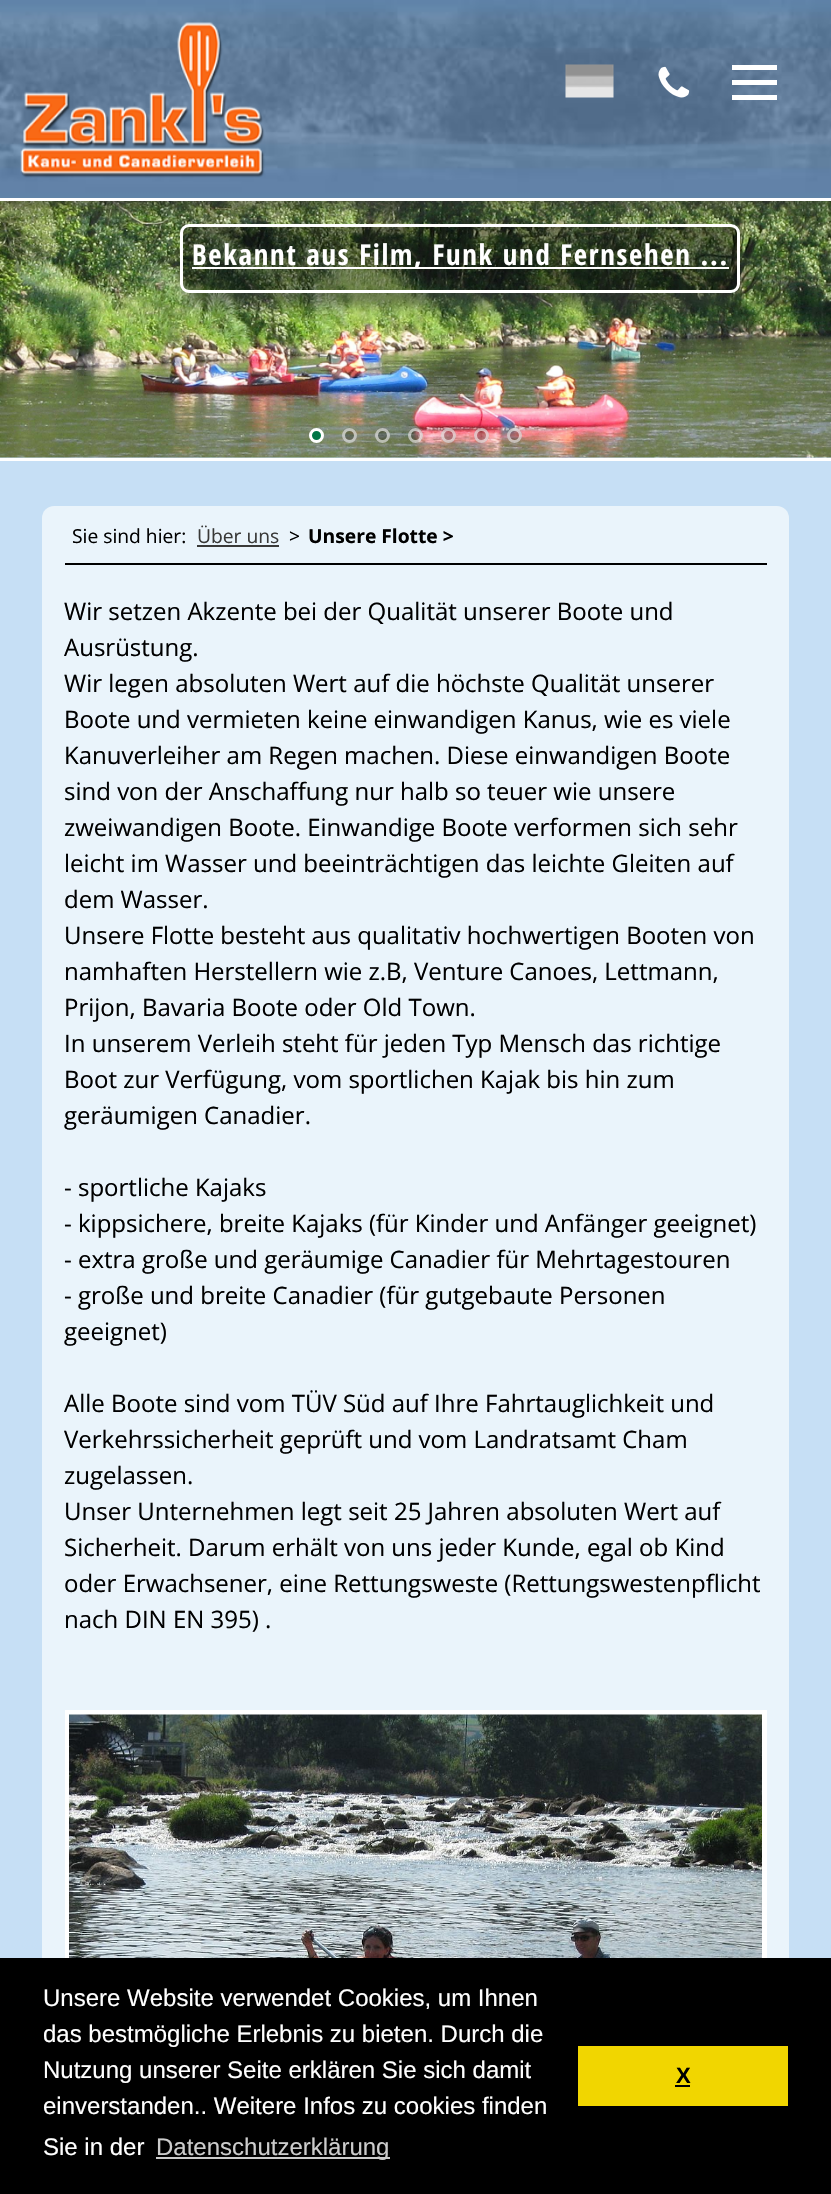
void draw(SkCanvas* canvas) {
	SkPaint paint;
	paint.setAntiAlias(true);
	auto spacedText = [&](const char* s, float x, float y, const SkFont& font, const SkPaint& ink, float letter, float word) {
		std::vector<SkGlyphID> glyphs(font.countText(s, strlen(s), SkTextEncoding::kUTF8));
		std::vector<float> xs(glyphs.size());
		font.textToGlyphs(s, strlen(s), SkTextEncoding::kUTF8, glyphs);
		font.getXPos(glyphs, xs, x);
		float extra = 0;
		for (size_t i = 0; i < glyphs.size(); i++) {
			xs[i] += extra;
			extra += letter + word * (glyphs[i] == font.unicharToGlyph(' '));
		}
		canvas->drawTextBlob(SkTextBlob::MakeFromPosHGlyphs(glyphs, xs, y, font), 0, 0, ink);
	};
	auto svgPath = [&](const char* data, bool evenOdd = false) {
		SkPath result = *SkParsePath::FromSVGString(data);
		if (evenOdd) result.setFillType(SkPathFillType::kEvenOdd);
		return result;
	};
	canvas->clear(0xffc6dff5);
	canvas->drawImageRect(SkImages::DeferredFromEncodedData(SkData::MakeFromFileName("img5.png")), SkRect::MakeXYWH(0, 201, 831, 257), SkSamplingOptions());
	canvas->save();
	canvas->clipPath(svgPath("M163 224H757V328H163ZM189 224H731C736 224 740 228 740 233V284C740 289 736 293 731 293H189C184 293 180 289 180 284V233C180 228 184 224 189 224Z", true), true);
	paint.setColor(0x8c323232);
	paint.setMaskFilter(SkMaskFilter::MakeBlur(kNormal_SkBlurStyle, 7));
	canvas->drawRoundRect(SkRect::MakeXYWH(185, 246, 550, 60), 5, 5, paint);
	paint.setMaskFilter(nullptr);
	canvas->restore();
	paint.setColor(0x66000000);
	canvas->drawRoundRect(SkRect::MakeXYWH(181.5, 225.5, 557, 66), 7.5, 7.5, paint);
	paint.setStroke(true);
	paint.setStrokeWidth(3);
	paint.setColor(0xffffffff);
	canvas->drawRoundRect(SkRect::MakeXYWH(181.5, 225.5, 557, 66), 7.5, 7.5, paint);
	paint.setStroke(false);
	paint.setColor(0xd9323232);
	paint.setMaskFilter(SkMaskFilter::MakeBlur(kNormal_SkBlurStyle, 9));
	canvas->drawRect(SkRect::MakeXYWH(0, 2, 831, 201), paint);
	paint.setMaskFilter(nullptr);
	canvas->drawImageRect(SkImages::DeferredFromEncodedData(SkData::MakeFromFileName("img1.png")), SkRect::MakeXYWH(0, 0, 831, 198), SkSamplingOptions());
	paint.setColor(0xffffffff);
	canvas->drawRect(SkRect::MakeXYWH(0, 198, 831, 3), paint);
	canvas->drawImageRect(SkImages::DeferredFromEncodedData(SkData::MakeFromFileName("img2.png")), SkRect::MakeXYWH(20, 22, 245, 156), SkSamplingOptions());
	canvas->drawImageRect(SkImages::DeferredFromEncodedData(SkData::MakeFromFileName("img3.png")), SkRect::MakeXYWH(565, 64, 49, 34), SkSamplingOptions());
	canvas->drawImageRect(SkImages::DeferredFromEncodedData(SkData::MakeFromFileName("img4.png")), SkRect::MakeXYWH(658, 66, 32, 32), SkSamplingOptions());
	canvas->drawRect(SkRect::MakeXYWH(732, 65, 45, 5), paint);
	canvas->drawRect(SkRect::MakeXYWH(732, 80, 45, 5), paint);
	canvas->drawRect(SkRect::MakeXYWH(732, 95, 45, 5), paint);
	canvas->drawRect(SkRect::MakeXYWH(0, 458, 831, 3), paint);
	canvas->drawRect(SkRect::MakeXYWH(192, 267, 537, 2), paint);
	SkFont f1(fontMgr->matchFamilyStyle("Open Sans Condensed", SkFontStyle::Bold()), 28.75);
	f1.setSubpixel(true);
	spacedText("Bekannt aus Film, Funk und Fernsehen ...", 192, 265, f1, paint, 1.75, 0);
	paint.setColor(0xff007646);
	canvas->drawCircle(316.5, 435.5, 6, paint);
	paint.setStroke(true);
	paint.setColor(0xffffffff);
	canvas->drawCircle(316.5, 435.5, 6, paint);
	paint.setStroke(false);
	paint.setColor(0x40000000);
	canvas->drawCircle(349.5, 435.5, 7.5, paint);
	paint.setStroke(true);
	paint.setColor(0x99ffffff);
	canvas->drawCircle(349.5, 435.5, 6, paint);
	paint.setStroke(false);
	paint.setColor(0x40000000);
	canvas->drawCircle(382.5, 435.5, 7.5, paint);
	paint.setStroke(true);
	paint.setColor(0x99ffffff);
	canvas->drawCircle(382.5, 435.5, 6, paint);
	paint.setStroke(false);
	paint.setColor(0x40000000);
	canvas->drawCircle(415.5, 435.5, 7.5, paint);
	paint.setStroke(true);
	paint.setColor(0x99ffffff);
	canvas->drawCircle(415.5, 435.5, 6, paint);
	paint.setStroke(false);
	paint.setColor(0x40000000);
	canvas->drawCircle(448.5, 435.5, 7.5, paint);
	paint.setStroke(true);
	paint.setColor(0x99ffffff);
	canvas->drawCircle(448.5, 435.5, 6, paint);
	paint.setStroke(false);
	paint.setColor(0x40000000);
	canvas->drawCircle(481.5, 435.5, 7.5, paint);
	paint.setStroke(true);
	paint.setColor(0x99ffffff);
	canvas->drawCircle(481.5, 435.5, 6, paint);
	paint.setStroke(false);
	paint.setColor(0x40000000);
	canvas->drawCircle(514.5, 435.5, 7.5, paint);
	paint.setStroke(true);
	paint.setColor(0x99ffffff);
	canvas->drawCircle(514.5, 435.5, 6, paint);
	paint.setStroke(false);
	paint.setColor(0xffeaf4fb);
	canvas->drawRoundRect(SkRect::MakeXYWH(42, 506, 747, 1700), 12, 12, paint);
	paint.setColor(0xff000000);
	canvas->drawRect(SkRect::MakeXYWH(65, 563, 702, 2), paint);
	SkFont f2(fontMgr->matchFamilyStyle("Open Sans", SkFontStyle::Normal()), 19.25);
	f2.setSubpixel(true);
	canvas->drawString("Sie sind hier:", 72, 543, f2, paint);
	paint.setColor(0xff393938);
	canvas->drawString("Über uns", 197, 543, f2, paint);
	canvas->drawRect(SkRect::MakeXYWH(197, 545, 82, 2), paint);
	paint.setColor(0xff000000);
	canvas->drawString(">", 289, 543, f2, paint);
	SkFont f3(fontMgr->matchFamilyStyle("Open Sans", SkFontStyle::Bold()), 19.25);
	f3.setSubpixel(true);
	canvas->drawString("Unsere Flotte >", 308, 543, f3, paint);
	SkFont f4(fontMgr->matchFamilyStyle("Open Sans", SkFontStyle::Normal()), 24);
	f4.setSubpixel(true);
	canvas->drawString("Wir setzen Akzente bei der Qualität unserer Boote und", 64, 620, f4, paint);
	canvas->drawString("Ausrüstung.", 64, 656, f4, paint);
	canvas->drawString("Wir legen absoluten Wert auf die höchste Qualität unserer", 64, 692, f4, paint);
	canvas->drawString("Boote und vermieten keine einwandigen Kanus, wie es viele", 64, 728, f4, paint);
	canvas->drawString("Kanuverleiher am Regen machen. Diese einwandigen Boote", 64, 764, f4, paint);
	canvas->drawString("sind von der Anschaffung nur halb so teuer wie unsere", 64, 800, f4, paint);
	canvas->drawString("zweiwandigen Boote. Einwandige Boote verformen sich sehr", 64, 836, f4, paint);
	canvas->drawString("leicht im Wasser und beeinträchtigen das leichte Gleiten auf", 64, 872, f4, paint);
	canvas->drawString("dem Wasser.", 64, 908, f4, paint);
	canvas->drawString("Unsere Flotte besteht aus qualitativ hochwertigen Booten von", 64, 944, f4, paint);
	canvas->drawString("namhaften Herstellern wie z.B, Venture Canoes, Lettmann,", 64, 980, f4, paint);
	canvas->drawString("Prijon, Bavaria Boote oder Old Town.", 64, 1016, f4, paint);
	canvas->drawString("In unserem Verleih steht für jeden Typ Mensch das richtige", 64, 1052, f4, paint);
	canvas->drawString("Boot zur Verfügung, vom sportlichen Kajak bis hin zum", 64, 1088, f4, paint);
	canvas->drawString("geräumigen Canadier.", 64, 1124, f4, paint);
	canvas->drawString("- sportliche Kajaks", 64, 1196, f4, paint);
	canvas->drawString("- kippsichere, breite Kajaks (für Kinder und Anfänger geeignet)", 64, 1232, f4, paint);
	canvas->drawString("- extra große und geräumige Canadier für Mehrtagestouren", 64, 1268, f4, paint);
	canvas->drawString("- große und breite Canadier (für gutgebaute Personen", 64, 1304, f4, paint);
	canvas->drawString("geeignet)", 64, 1340, f4, paint);
	canvas->drawString("Alle Boote sind vom TÜV Süd auf Ihre Fahrtauglichkeit und", 64, 1412, f4, paint);
	canvas->drawString("Verkehrssicherheit geprüft und vom Landratsamt Cham", 64, 1448, f4, paint);
	canvas->drawString("zugelassen.", 64, 1484, f4, paint);
	canvas->drawString("Unser Unternehmen legt seit 25 Jahren absoluten Wert auf", 64, 1520, f4, paint);
	canvas->drawString("Sicherheit. Darum erhält von uns jeder Kunde, egal ob Kind", 64, 1556, f4, paint);
	canvas->drawString("oder Erwachsener, eine Rettungsweste (Rettungswestenpflicht", 64, 1592, f4, paint);
	canvas->drawString("nach DIN EN 395) .", 64, 1628, f4, paint);
	paint.setStroke(true);
	paint.setStrokeWidth(5);
	paint.setColor(0xffffffff);
	canvas->drawRect(SkRect::MakeXYWH(67.5, 1712.5, 697, 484), paint);
	canvas->drawImageRect(SkImages::DeferredFromEncodedData(SkData::MakeFromFileName("img6.png")), SkRect::MakeXYWH(69, 1714, 693, 244), SkSamplingOptions());
	paint.setStroke(false);
	paint.setColor(0xff000000);
	canvas->drawRect(SkRect::MakeXYWH(0, 1958, 831, 236), paint);
	SkFont f5(fontMgr->matchFamilyStyle("Liberation Sans", SkFontStyle::Normal()), 24);
	f5.setSubpixel(true);
	paint.setColor(0xffffffff);
	canvas->drawString("Unsere Website verwendet Cookies, um Ihnen", 43, 2006, f5, paint);
	canvas->drawString("das bestmögliche Erlebnis zu bieten. Durch die", 43, 2042, f5, paint);
	canvas->drawString("Nutzung unserer Seite erklären Sie sich damit", 43, 2078, f5, paint);
	canvas->drawString("einverstanden.. Weitere Infos zu cookies finden", 43, 2114, f5, paint);
	canvas->drawString("Sie in der", 43, 2155, f5, paint);
	paint.setColor(0xffcccccc);
	canvas->drawRect(SkRect::MakeXYWH(156, 2157, 234, 2), paint);
	canvas->drawString("Datenschutzerklärung", 156, 2155, f5, paint);
	paint.setColor(0xfff1d600);
	canvas->drawRect(SkRect::MakeXYWH(578, 2046, 210, 60), paint);
	SkFont f6(fontMgr->matchFamilyStyle("Liberation Sans", SkFontStyle::Bold()), 22);
	f6.setSubpixel(true);
	paint.setColor(0xff000000);
	canvas->drawString("X", 676, 2083, f6, paint);
	canvas->drawRect(SkRect::MakeXYWH(675, 2085, 15, 2), paint);
}
